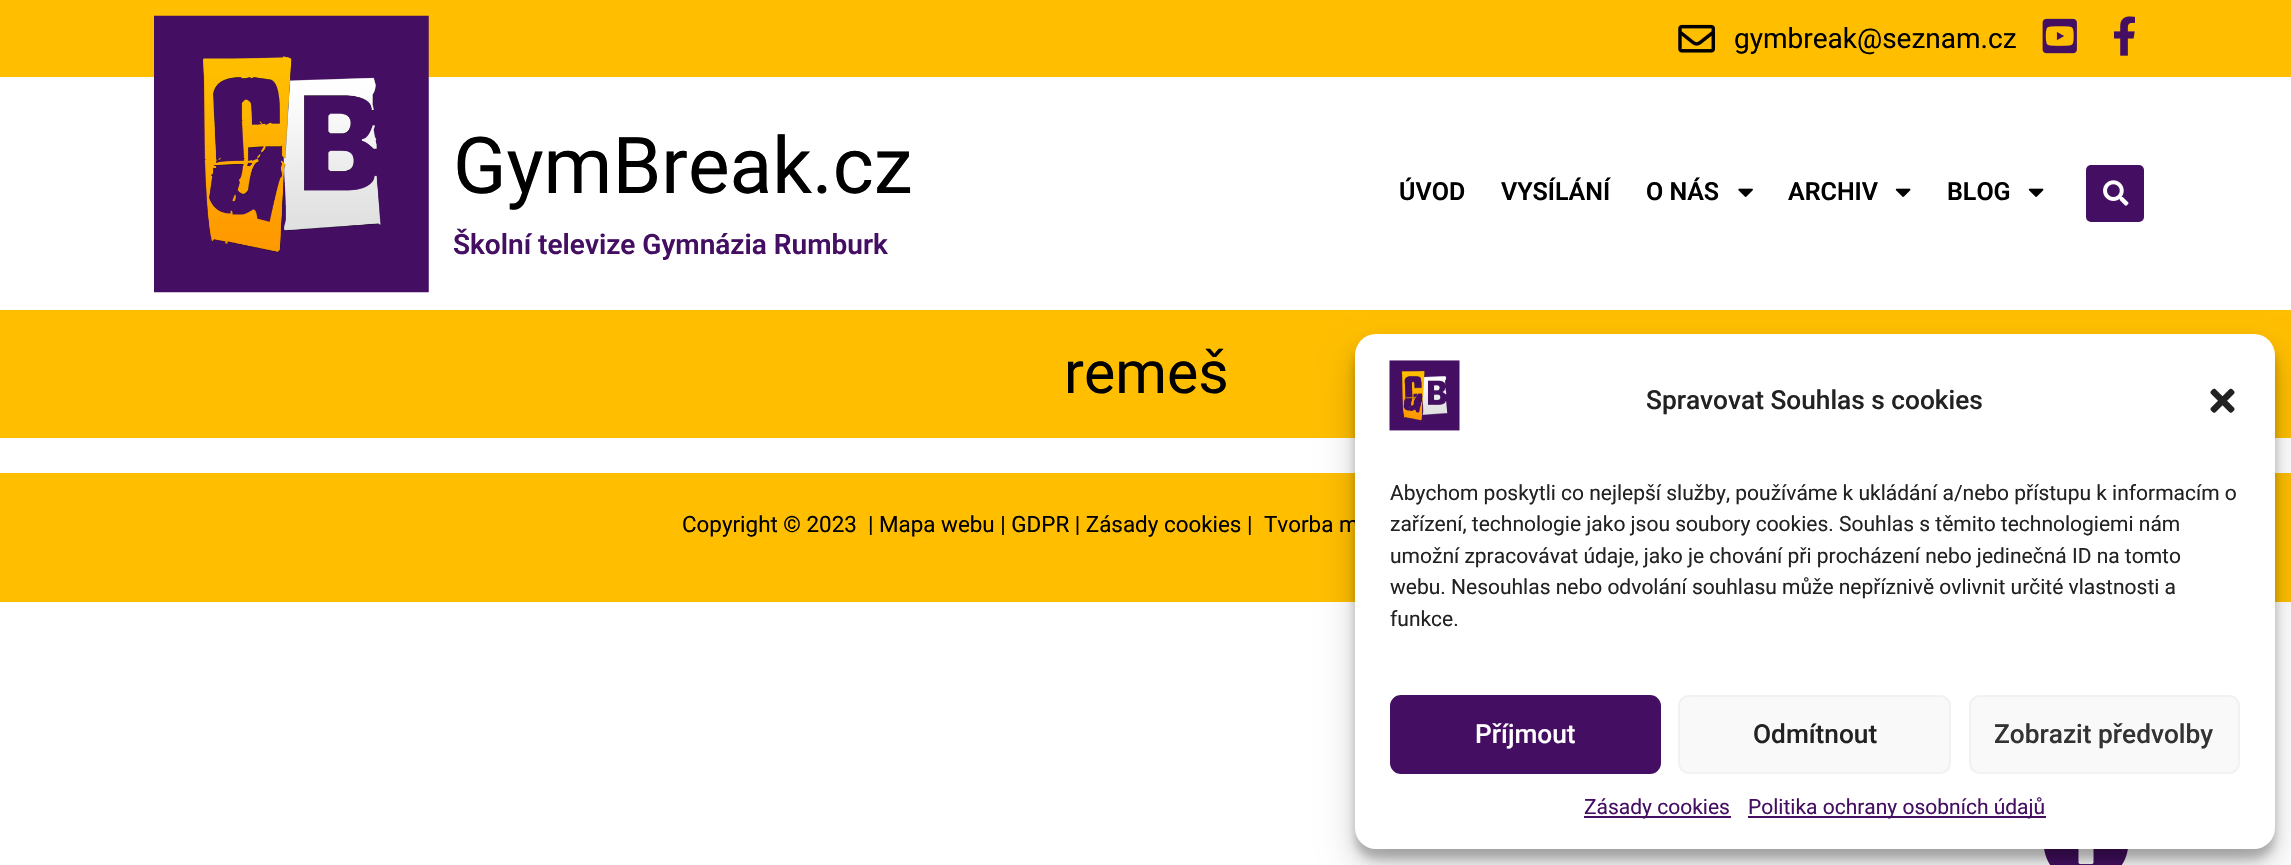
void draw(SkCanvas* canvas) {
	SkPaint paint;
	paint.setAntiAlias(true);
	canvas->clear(0xffffffff);
	paint.setColor(0xffffbe00);
	canvas->drawRect(SkRect::MakeXYWH(0, 0, 2291, 77), paint);
	canvas->drawImageRect(SkImages::DeferredFromEncodedData(SkData::MakeFromFileName("img1.png")), SkRect::MakeXYWH(1678, 24, 37, 29), SkSamplingOptions());
	SkFont f1(fontMgr->matchFamilyStyle("Roboto", SkFontStyle::Normal()), 28);
	f1.setSubpixel(true);
	paint.setColor(0xff000000);
	canvas->drawString("gymbreak@seznam.cz", 1734, 48, f1, paint);
	canvas->drawImageRect(SkImages::DeferredFromEncodedData(SkData::MakeFromFileName("img2.png")), SkRect::MakeXYWH(2042, 18, 35, 36), SkSamplingOptions());
	canvas->drawImageRect(SkImages::DeferredFromEncodedData(SkData::MakeFromFileName("img3.png")), SkRect::MakeXYWH(2114, 16, 21, 40), SkSamplingOptions());
	canvas->drawImageRect(SkImages::DeferredFromEncodedData(SkData::MakeFromFileName("img4.png")), SkRect::MakeXYWH(154, 15, 275, 278), SkSamplingOptions());
	SkFont f2(fontMgr->matchFamilyStyle("Roboto", SkFontStyle::Normal()), 78.5);
	f2.setSubpixel(true);
	canvas->drawString("GymBreak.cz", 453, 193, f2, paint);
	SkFont f3(fontMgr->matchFamilyStyle("Roboto", SkFontStyle(600, SkFontStyle::kNormal_Width, SkFontStyle::kUpright_Slant)), 28);
	f3.setSubpixel(true);
	paint.setColor(0xff440e62);
	canvas->drawString("Školní televize Gymnázia Rumburk", 453, 254, f3, paint);
	SkFont f4(fontMgr->matchFamilyStyle("Roboto", SkFontStyle(600, SkFontStyle::kNormal_Width, SkFontStyle::kUpright_Slant)), 25);
	f4.setSubpixel(true);
	paint.setColor(0xff000000);
	canvas->drawString("ÚVOD", 1399, 200, f4, paint);
	canvas->drawString("VYSÍLÁNÍ", 1501, 200, f4, paint);
	canvas->drawString("O NÁS", 1646, 200, f4, paint);
	canvas->drawImageRect(SkImages::DeferredFromEncodedData(SkData::MakeFromFileName("img5.png")), SkRect::MakeXYWH(1738, 188, 15, 9), SkSamplingOptions());
	canvas->drawString("ARCHIV", 1788, 200, f4, paint);
	canvas->drawImageRect(SkImages::DeferredFromEncodedData(SkData::MakeFromFileName("img6.png")), SkRect::MakeXYWH(1895, 188, 16, 9), SkSamplingOptions());
	canvas->drawString("BLOG", 1947, 200, f4, paint);
	canvas->drawImageRect(SkImages::DeferredFromEncodedData(SkData::MakeFromFileName("img6.png")), SkRect::MakeXYWH(2028, 188, 16, 9), SkSamplingOptions());
	paint.setColor(0xff440e62);
	canvas->drawRoundRect(SkRect::MakeXYWH(2086, 165, 58, 57), 5, 5, paint);
	canvas->drawImageRect(SkImages::DeferredFromEncodedData(SkData::MakeFromFileName("img7.png")), SkRect::MakeXYWH(2103, 180, 26, 26), SkSamplingOptions());
	paint.setColor(0xffffbe00);
	canvas->drawRect(SkRect::MakeXYWH(0, 310, 2291, 128), paint);
	SkFont f5(fontMgr->matchFamilyStyle("Roboto", SkFontStyle::Normal()), 59);
	f5.setSubpixel(true);
	paint.setColor(0xff000000);
	canvas->drawString("remeš", 1064, 393, f5, paint);
	paint.setColor(0xffffbe00);
	canvas->drawRect(SkRect::MakeXYWH(0, 473, 2291, 129), paint);
	SkFont f6(fontMgr->matchFamilyStyle("Roboto", SkFontStyle::Normal()), 22.4);
	f6.setSubpixel(true);
	paint.setColor(0xff000000);
	canvas->drawString("Copyright © 2023  | Mapa webu | GDPR | Zásady cookies |", 682, 532, f6, paint);
	canvas->drawString("Tvorba m", 1264, 532, f6, paint);
	canvas->drawImageRect(SkImages::DeferredFromEncodedData(SkData::MakeFromFileName("img8.png")), SkRect::MakeXYWH(2044, 849, 84, 16), SkSamplingOptions());
	paint.setColor(0x3b000000);
	paint.setMaskFilter(SkMaskFilter::MakeBlur(kNormal_SkBlurStyle, 5));
	canvas->drawRoundRect(SkRect::MakeXYWH(1355, 345, 920, 514), 21, 21, paint);
	paint.setMaskFilter(nullptr);
	paint.setColor(0x30000000);
	paint.setMaskFilter(SkMaskFilter::MakeBlur(kNormal_SkBlurStyle, 17.5));
	canvas->drawRoundRect(SkRect::MakeXYWH(1355, 352, 920, 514), 21, 21, paint);
	paint.setMaskFilter(nullptr);
	paint.setColor(0xffffffff);
	canvas->drawRoundRect(SkRect::MakeXYWH(1355, 334, 920, 515), 21, 21, paint);
	canvas->drawImageRect(SkImages::DeferredFromEncodedData(SkData::MakeFromFileName("img9.png")), SkRect::MakeXYWH(1389, 360, 71, 71), SkSamplingOptions());
	SkFont f7(fontMgr->matchFamilyStyle("Roboto", SkFontStyle(500, SkFontStyle::kNormal_Width, SkFontStyle::kUpright_Slant)), 26.25);
	f7.setSubpixel(true);
	paint.setColor(0xff222222);
	canvas->drawString("Spravovat Souhlas s cookies", 1646, 409, f7, paint);
	canvas->drawImageRect(SkImages::DeferredFromEncodedData(SkData::MakeFromFileName("img10.png")), SkRect::MakeXYWH(2210, 388, 25, 25), SkSamplingOptions());
	SkFont f8(fontMgr->matchFamilyStyle("Roboto", SkFontStyle::Normal()), 21);
	f8.setSubpixel(true);
	canvas->drawString("Abychom poskytli co nejlepší služby, používáme k ukládání a/nebo přístupu k informacím o", 1390, 500, f8, paint);
	canvas->drawString("zařízení, technologie jako jsou soubory cookies. Souhlas s těmito technologiemi nám", 1390, 531, f8, paint);
	canvas->drawString("umožní zpracovávat údaje, jako je chování při procházení nebo jedinečná ID na tomto", 1390, 563, f8, paint);
	canvas->drawString("webu. Nesouhlas nebo odvolání souhlasu může nepříznivě ovlivnit určité vlastnosti a", 1390, 594, f8, paint);
	canvas->drawString("funkce.", 1390, 626, f8, paint);
	paint.setColor(0xff440e62);
	canvas->drawRoundRect(SkRect::MakeXYWH(1391, 696, 269, 77), 10, 10, paint);
	paint.setStroke(true);
	paint.setStrokeWidth(2);
	canvas->drawRoundRect(SkRect::MakeXYWH(1391, 696, 269, 77), 10, 10, paint);
	paint.setStroke(false);
	paint.setColor(0xffffffff);
	canvas->drawString("Příjmout", 1475, 743, f7, paint);
	paint.setColor(0xfff9f9f9);
	canvas->drawRoundRect(SkRect::MakeXYWH(1679, 696, 271, 77), 10, 10, paint);
	paint.setStroke(true);
	paint.setColor(0xfff2f2f2);
	canvas->drawRoundRect(SkRect::MakeXYWH(1679, 696, 271, 77), 10, 10, paint);
	paint.setStroke(false);
	paint.setColor(0xff222222);
	canvas->drawString("Odmítnout", 1753, 743, f7, paint);
	paint.setColor(0xfff9f9f9);
	canvas->drawRoundRect(SkRect::MakeXYWH(1970, 696, 269, 77), 10, 10, paint);
	paint.setStroke(true);
	paint.setColor(0xfff2f2f2);
	canvas->drawRoundRect(SkRect::MakeXYWH(1970, 696, 269, 77), 10, 10, paint);
	paint.setStroke(false);
	paint.setColor(0xff333333);
	canvas->drawString("Zobrazit předvolby", 1994, 743, f7, paint);
	paint.setColor(0xff440e62);
	canvas->drawRect(SkRect::MakeXYWH(1584, 816, 147, 2), paint);
	canvas->drawString("Zásady cookies", 1584, 814, f8, paint);
	canvas->drawRect(SkRect::MakeXYWH(1748, 816, 298, 2), paint);
	canvas->drawString("Politika ochrany osobních údajů", 1748, 814, f8, paint);
}
